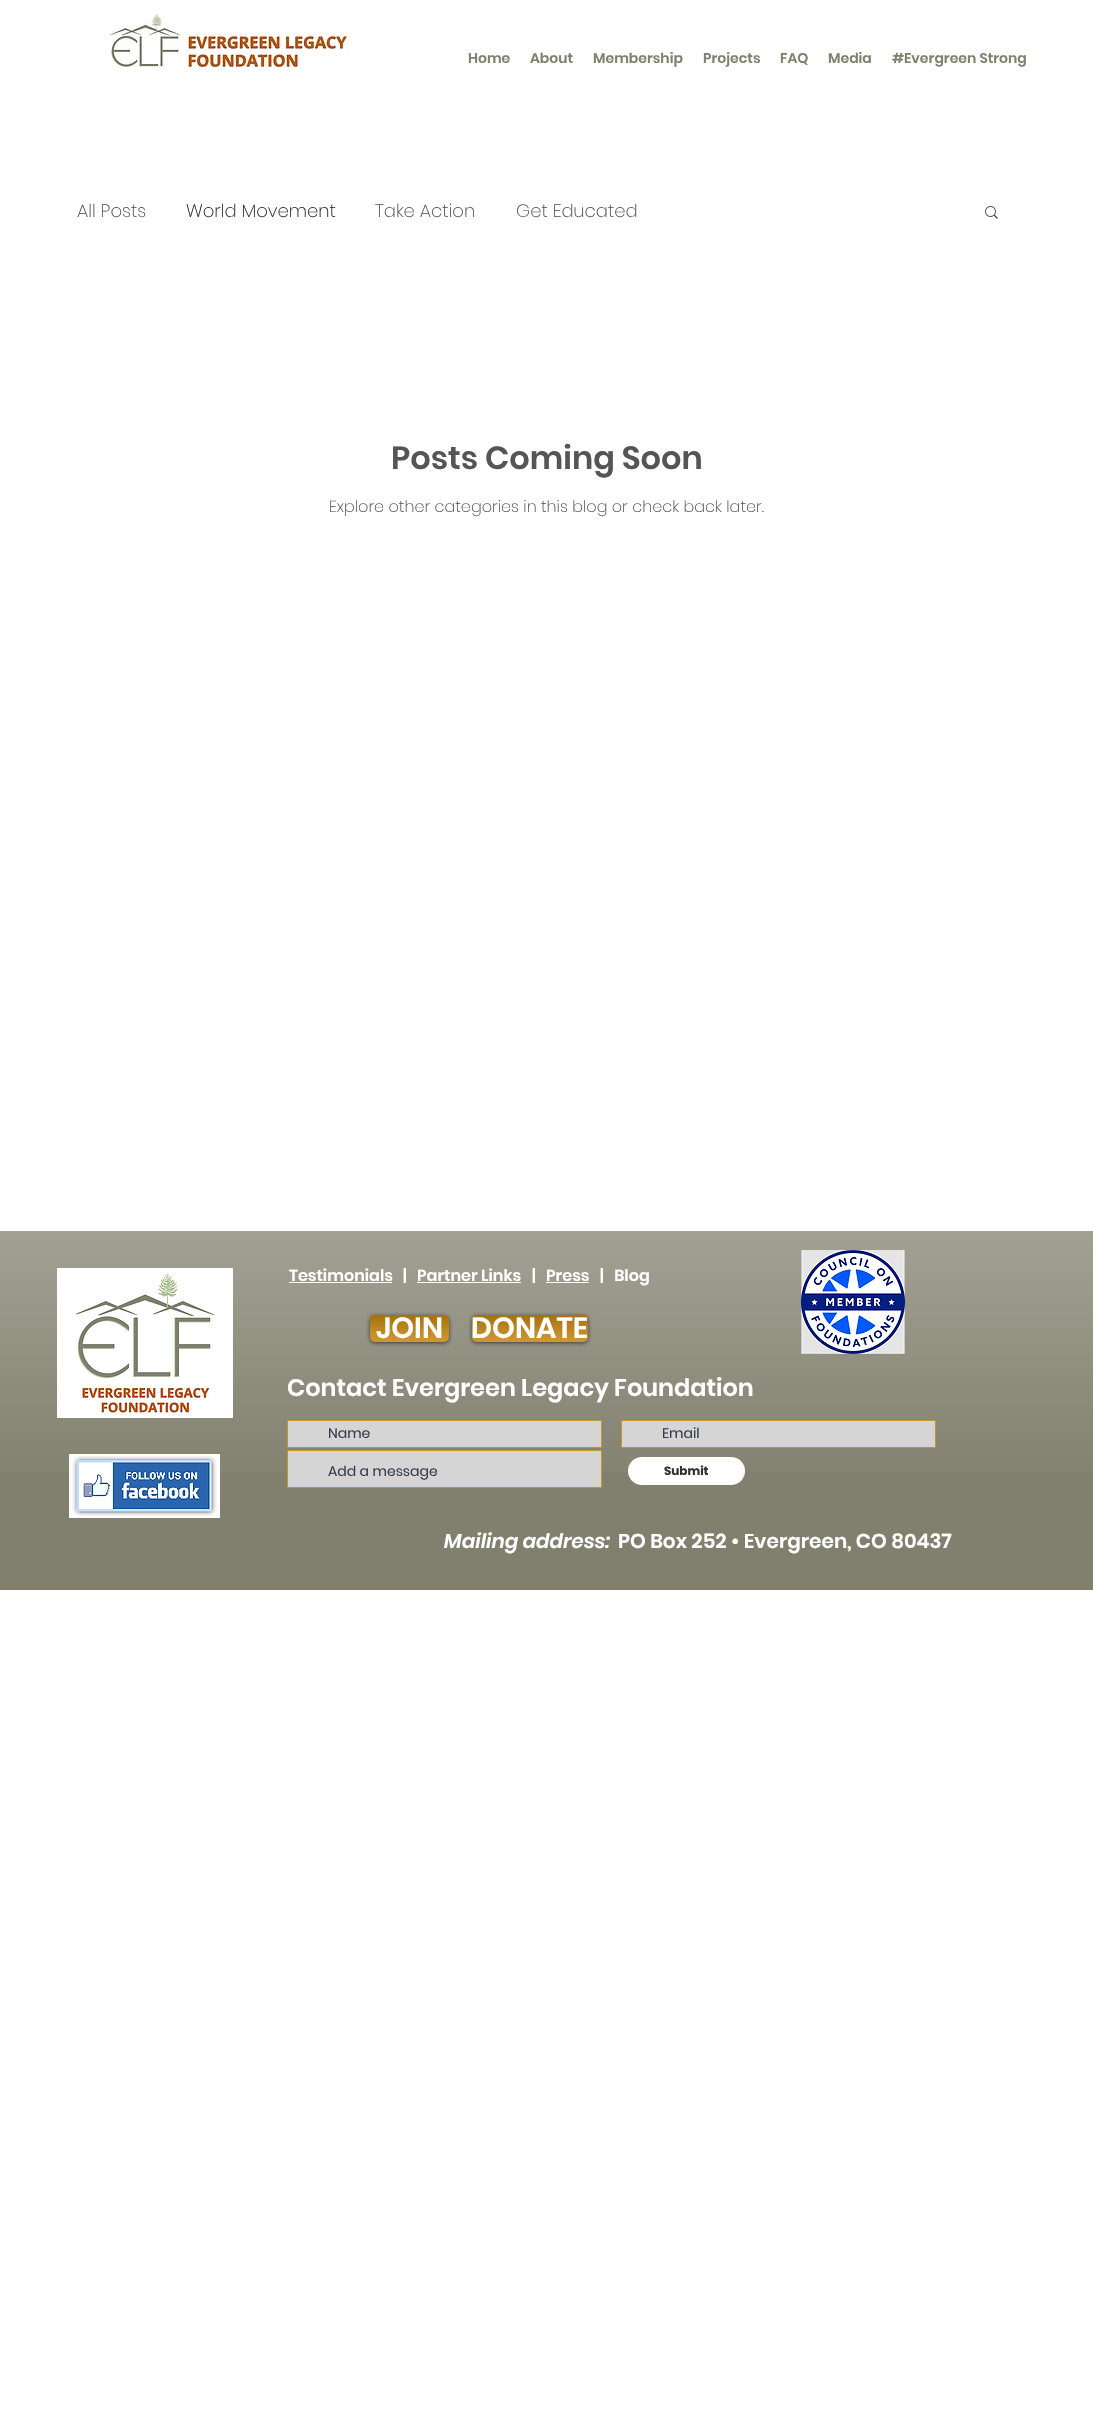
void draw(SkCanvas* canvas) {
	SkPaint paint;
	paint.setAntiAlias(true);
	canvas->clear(0xffffffff);
	canvas->drawImageRect(SkImages::DeferredFromEncodedData(SkData::MakeFromFileName("img1.png")), SkRect::MakeXYWH(108, 14, 243, 58), SkSamplingOptions());
	SkFont f1(fontMgr->matchFamilyStyle("Poppins", SkFontStyle(600, SkFontStyle::kNormal_Width, SkFontStyle::kUpright_Slant)), 14);
	f1.setSubpixel(true);
	paint.setColor(0xff81806e);
	canvas->drawString("Home", 468, 63, f1, paint);
	canvas->drawString("About", 530, 63, f1, paint);
	canvas->drawString("Membership", 593, 63, f1, paint);
	canvas->drawString("Projects", 703, 63, f1, paint);
	canvas->drawString("FAQ", 780, 63, f1, paint);
	canvas->drawString("Media", 828, 63, f1, paint);
	canvas->drawString("#Evergreen Strong", 892, 63, f1, paint);
	SkFont f2(fontMgr->matchFamilyStyle("Poppins", SkFontStyle(200, SkFontStyle::kNormal_Width, SkFontStyle::kUpright_Slant)), 18);
	f2.setSubpixel(true);
	paint.setColor(0xff555555);
	canvas->drawString("All Posts", 77, 217, f2, paint);
	paint.setColor(0xff2b3025);
	canvas->drawString("World Movement", 186, 217, f2, paint);
	paint.setColor(0xff555555);
	canvas->drawString("Take Action", 375, 217, f2, paint);
	canvas->drawString("Get Educated", 516, 217, f2, paint);
	canvas->drawImageRect(SkImages::DeferredFromEncodedData(SkData::MakeFromFileName("img2.png")), SkRect::MakeXYWH(985, 206, 13, 13), SkSamplingOptions());
	SkFont f3(fontMgr->matchFamilyStyle("Poppins", SkFontStyle(600, SkFontStyle::kNormal_Width, SkFontStyle::kUpright_Slant)), 32);
	f3.setSubpixel(true);
	canvas->drawString("Posts Coming Soon", 391, 469, f3, paint);
	SkFont f4(fontMgr->matchFamilyStyle("Poppins", SkFontStyle(200, SkFontStyle::kNormal_Width, SkFontStyle::kUpright_Slant)), 16);
	f4.setSubpixel(true);
	canvas->drawString("Explore other categories in this blog or check back later.", 329, 512, f4, paint);
	paint.setColor(0xff81806e);
	canvas->drawRect(SkRect::MakeXYWH(0, 1231, 1093, 359), paint);
	canvas->drawImageRect(SkImages::DeferredFromEncodedData(SkData::MakeFromFileName("img3.png")), SkRect::MakeXYWH(0, 1231, 1093, 241), SkSamplingOptions());
	canvas->drawImageRect(SkImages::DeferredFromEncodedData(SkData::MakeFromFileName("img4.png")), SkRect::MakeXYWH(57, 1268, 176, 150), SkSamplingOptions());
	SkFont f5(fontMgr->matchFamilyStyle("Poppins", SkFontStyle(600, SkFontStyle::kNormal_Width, SkFontStyle::kUpright_Slant)), 16);
	f5.setSubpixel(true);
	paint.setColor(0xffffffff);
	canvas->drawString("Testimonials", 289, 1281, f5, paint);
	canvas->drawRect(SkRect::MakeXYWH(289, 1282, 103, 1), paint);
	canvas->drawString("|", 403, 1281, f5, paint);
	canvas->drawString("Partner Links", 417, 1281, f5, paint);
	canvas->drawRect(SkRect::MakeXYWH(417, 1282, 104, 1), paint);
	canvas->drawString("|", 532, 1281, f5, paint);
	canvas->drawString("Press", 546, 1281, f5, paint);
	canvas->drawRect(SkRect::MakeXYWH(546, 1282, 43, 1), paint);
	canvas->drawString("|   Blog", 600, 1281, f5, paint);
	canvas->drawImageRect(SkImages::DeferredFromEncodedData(SkData::MakeFromFileName("img5.png")), SkRect::MakeXYWH(801, 1250, 104, 104), SkSamplingOptions());
	paint.setColor(0x99000000);
	paint.setMaskFilter(SkMaskFilter::MakeBlur(kNormal_SkBlurStyle, 2));
	canvas->drawRoundRect(SkRect::MakeXYWH(370, 1316, 79, 27), 5, 5, paint);
	paint.setMaskFilter(nullptr);
	paint.setColor(0xffc37f00);
	canvas->drawRoundRect(SkRect::MakeXYWH(370, 1315, 79, 27), 5, 5, paint);
	canvas->drawImageRect(SkImages::DeferredFromEncodedData(SkData::MakeFromFileName("img6.png")), SkRect::MakeXYWH(370, 1315, 79, 26), SkSamplingOptions());
	canvas->drawImageRect(SkImages::DeferredFromEncodedData(SkData::MakeFromFileName("img7.png")), SkRect::MakeXYWH(370, 1315, 79, 27), SkSamplingOptions());
	SkFont f6(fontMgr->matchFamilyStyle("Poppins", SkFontStyle(600, SkFontStyle::kNormal_Width, SkFontStyle::kUpright_Slant)), 29);
	f6.setSubpixel(true);
	paint.setColor(0xffffffff);
	canvas->drawString("JOIN", 376, 1338, f6, paint);
	paint.setColor(0x99000000);
	paint.setMaskFilter(SkMaskFilter::MakeBlur(kNormal_SkBlurStyle, 2));
	canvas->drawRoundRect(SkRect::MakeXYWH(472, 1316, 116, 27), 5, 5, paint);
	paint.setMaskFilter(nullptr);
	paint.setColor(0xffc37f00);
	canvas->drawRoundRect(SkRect::MakeXYWH(472, 1315, 116, 27), 5, 5, paint);
	canvas->drawImageRect(SkImages::DeferredFromEncodedData(SkData::MakeFromFileName("img8.png")), SkRect::MakeXYWH(472, 1315, 116, 26), SkSamplingOptions());
	canvas->drawImageRect(SkImages::DeferredFromEncodedData(SkData::MakeFromFileName("img9.png")), SkRect::MakeXYWH(472, 1315, 116, 27), SkSamplingOptions());
	paint.setColor(0xffffffff);
	canvas->drawString("DONATE", 471, 1338, f6, paint);
	canvas->drawImageRect(SkImages::DeferredFromEncodedData(SkData::MakeFromFileName("img10.png")), SkRect::MakeXYWH(69, 1454, 151, 64), SkSamplingOptions());
	SkFont f7(fontMgr->matchFamilyStyle("Poppins", SkFontStyle(600, SkFontStyle::kNormal_Width, SkFontStyle::kUpright_Slant)), 24);
	f7.setSubpixel(true);
	canvas->drawString("Contact Evergreen Legacy Foundation", 287, 1396, f7, paint);
	paint.setColor(0xffd5d5d5);
	canvas->drawRect(SkRect::MakeXYWH(287.5, 1420.5, 314, 27), paint);
	paint.setStroke(true);
	paint.setStrokeWidth(1);
	paint.setColor(0xffc9932c);
	canvas->drawRect(SkRect::MakeXYWH(287.5, 1420.5, 314, 27), paint);
	SkFont f8(fontMgr->matchFamilyStyle("Poppins", SkFontStyle::Normal()), 14);
	f8.setSubpixel(true);
	paint.setStroke(false);
	paint.setColor(0xff373b4d);
	canvas->drawString("Name", 328, 1438, f8, paint);
	paint.setColor(0xffd5d5d5);
	canvas->drawRect(SkRect::MakeXYWH(621.5, 1420.5, 314, 27), paint);
	paint.setStroke(true);
	paint.setColor(0xffc9932c);
	canvas->drawRect(SkRect::MakeXYWH(621.5, 1420.5, 314, 27), paint);
	paint.setStroke(false);
	paint.setColor(0xff373b4d);
	canvas->drawString("Email", 662, 1438, f8, paint);
	paint.setColor(0xffd5d5d5);
	canvas->drawRect(SkRect::MakeXYWH(287.5, 1450.5, 314, 37), paint);
	paint.setStroke(true);
	paint.setColor(0xffc9932c);
	canvas->drawRect(SkRect::MakeXYWH(287.5, 1450.5, 314, 37), paint);
	paint.setStroke(false);
	paint.setColor(0xff373b4d);
	canvas->drawString("Add a message", 328, 1476, f8, paint);
	paint.setColor(0xffffffff);
	canvas->drawRoundRect(SkRect::MakeXYWH(628, 1457, 117, 28), 14, 14, paint);
	SkFont f9(fontMgr->matchFamilyStyle("Poppins", SkFontStyle::Bold()), 12);
	f9.setSubpixel(true);
	paint.setColor(0xff323232);
	canvas->drawString("Submit", 664, 1475, f9, paint);
	SkFont f10(fontMgr->matchFamilyStyle("Poppins", SkFontStyle(600, SkFontStyle::kNormal_Width, SkFontStyle::kItalic_Slant)), 20);
	f10.setSubpixel(true);
	paint.setColor(0xffffffff);
	canvas->drawString("Mailing address:", 444, 1548, f10, paint);
	SkFont f11(fontMgr->matchFamilyStyle("Poppins", SkFontStyle(600, SkFontStyle::kNormal_Width, SkFontStyle::kUpright_Slant)), 20);
	f11.setSubpixel(true);
	canvas->drawString("PO Box 252 • Evergreen, CO 80437", 618, 1548, f11, paint);
}
